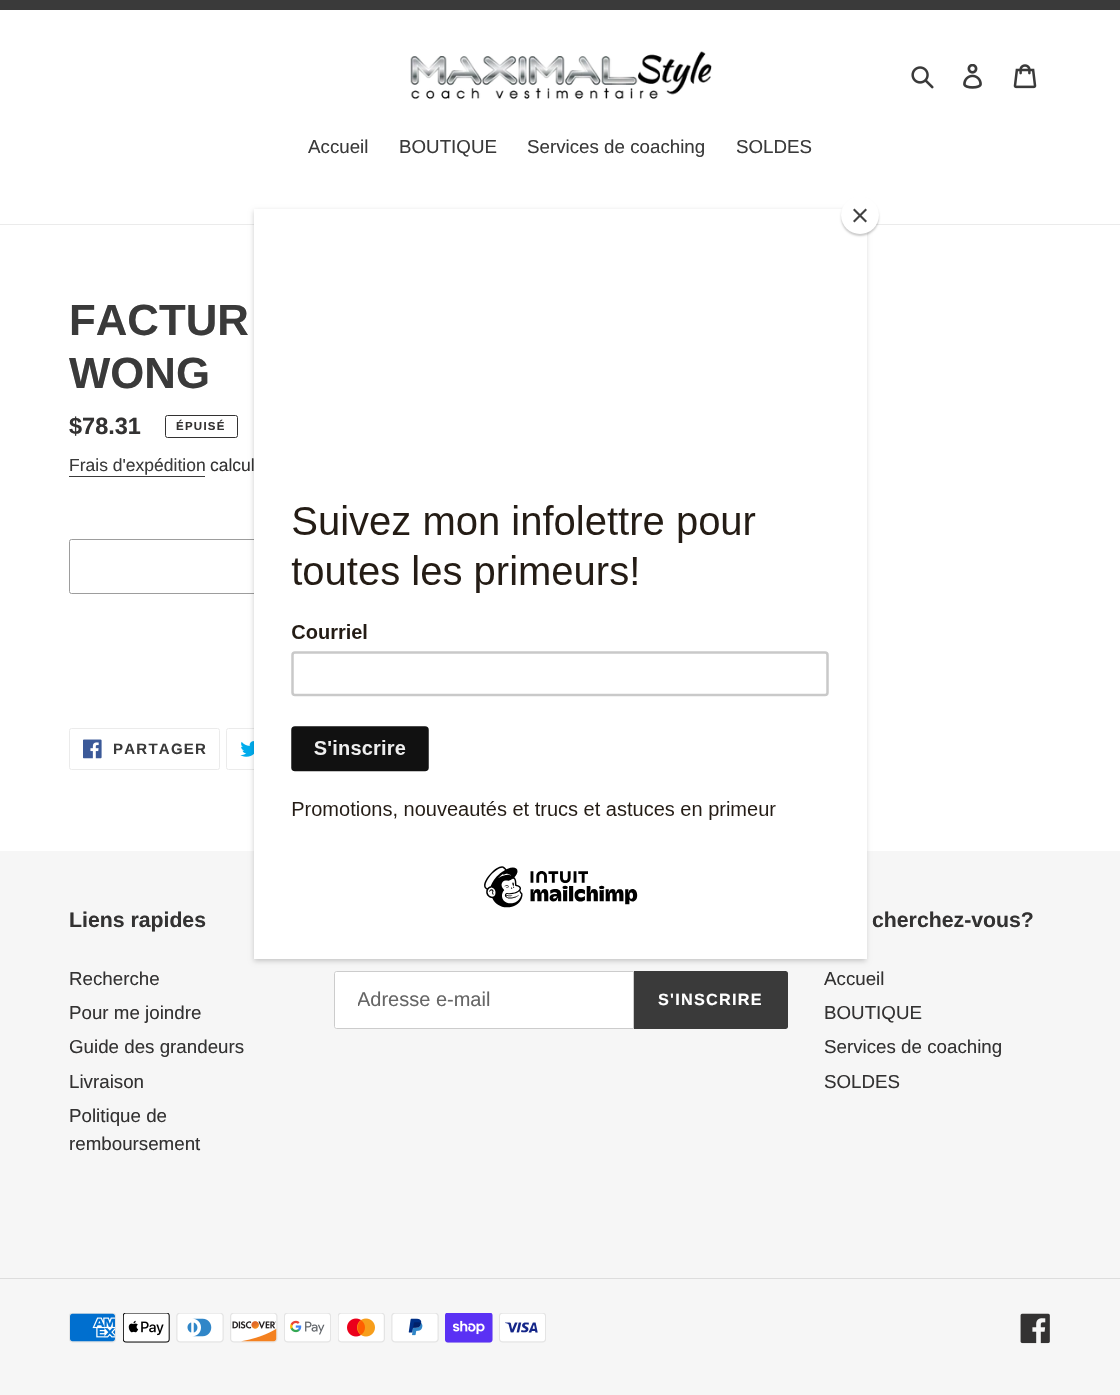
void draw(SkCanvas* canvas) {
	SkPaint paint;
	paint.setAntiAlias(true);
	auto spacedText = [&](const char* s, float x, float y, const SkFont& font, const SkPaint& ink, float letter, float word) {
		std::vector<SkGlyphID> glyphs(font.countText(s, strlen(s), SkTextEncoding::kUTF8));
		std::vector<float> xs(glyphs.size());
		font.textToGlyphs(s, strlen(s), SkTextEncoding::kUTF8, glyphs);
		font.getXPos(glyphs, xs, x);
		float extra = 0;
		for (size_t i = 0; i < glyphs.size(); i++) {
			xs[i] += extra;
			extra += letter + word * (glyphs[i] == font.unicharToGlyph(' '));
		}
		canvas->drawTextBlob(SkTextBlob::MakeFromPosHGlyphs(glyphs, xs, y, font), 0, 0, ink);
	};
	auto svgPath = [&](const char* data, bool evenOdd = false) {
		SkPath result = *SkParsePath::FromSVGString(data);
		if (evenOdd) result.setFillType(SkPathFillType::kEvenOdd);
		return result;
	};
	canvas->clear(0xffffffff);
	paint.setColor(0xff3a3a3a);
	canvas->drawRect(SkRect::MakeXYWH(0, 0, 1120, 10), paint);
	canvas->drawImageRect(SkImages::DeferredFromEncodedData(SkData::MakeFromFileName("img1.png")), SkRect::MakeXYWH(410, 51, 302, 48), SkSamplingOptions());
	canvas->drawImageRect(SkImages::DeferredFromEncodedData(SkData::MakeFromFileName("img2.png")), SkRect::MakeXYWH(911, 66, 23, 23), SkSamplingOptions());
	canvas->drawImageRect(SkImages::DeferredFromEncodedData(SkData::MakeFromFileName("img3.png")), SkRect::MakeXYWH(963, 64, 19, 25), SkSamplingOptions());
	canvas->drawImageRect(SkImages::DeferredFromEncodedData(SkData::MakeFromFileName("img4.png")), SkRect::MakeXYWH(1013, 64, 24, 25), SkSamplingOptions());
	paint.setColor(0xffebebeb);
	canvas->drawRect(SkRect::MakeXYWH(0, 224, 1120, 1), paint);
	SkFont f1(fontMgr->matchFamilyStyle("Liberation Sans", SkFontStyle::Normal()), 18.75);
	f1.setSubpixel(true);
	paint.setColor(0xff3a3a3a);
	canvas->drawString("Accueil", 308, 153, f1, paint);
	canvas->drawString("BOUTIQUE", 399, 153, f1, paint);
	canvas->drawString("Services de coaching", 527, 153, f1, paint);
	canvas->drawString("SOLDES", 736, 153, f1, paint);
	paint.setStroke(true);
	paint.setStrokeWidth(1);
	paint.setColor(0xff9d9d9d);
	canvas->drawRoundRect(SkRect::MakeXYWH(69.5, 539.5, 471, 54), 2, 2, paint);
	paint.setColor(0xffebebeb);
	canvas->drawRoundRect(SkRect::MakeXYWH(226.5, 728.5, 139, 41), 2, 2, paint);
	canvas->drawImageRect(SkImages::DeferredFromEncodedData(SkData::MakeFromFileName("img7.png")), SkRect::MakeXYWH(240, 741, 14, 16), SkSamplingOptions());
	paint.setStroke(false);
	paint.setColor(0xfff6f6f6);
	canvas->drawRect(SkRect::MakeXYWH(0, 851, 1120, 544), paint);
	paint.setColor(0x33000000);
	paint.setMaskFilter(SkMaskFilter::MakeBlur(kNormal_SkBlurStyle, 2.5));
	canvas->drawRect(SkRect::MakeXYWH(254, 211, 612, 750), paint);
	paint.setMaskFilter(nullptr);
	canvas->drawImageRect(SkImages::DeferredFromEncodedData(SkData::MakeFromFileName("img5.png")), SkRect::MakeXYWH(254, 209, 613, 750), SkSamplingOptions());
	paint.setMaskFilter(SkMaskFilter::MakeBlur(kNormal_SkBlurStyle, 1));
	canvas->drawRoundRect(SkRect::MakeXYWH(841, 199, 38, 37), 18.5, 18.5, paint);
	paint.setMaskFilter(nullptr);
	paint.setColor(0xffffffff);
	canvas->drawCircle(860, 215, 19, paint);
	paint.setColor(0xff414141);
	canvas->drawPath(svgPath("M865.5 208.5L867 210L854.5 222.5L853 221Z"), paint);
	canvas->drawPath(svgPath("M853 210L854.5 208.5L867 221L865.5 222.5Z"), paint);
	SkFont f2(fontMgr->matchFamilyStyle("Liberation Sans", SkFontStyle::Bold()), 43.75);
	f2.setSubpixel(true);
	paint.setColor(0xff3a3a3a);
	canvas->drawString("FACTUR", 69, 335, f2, paint);
	canvas->drawString("WONG", 69, 388, f2, paint);
	SkFont f3(fontMgr->matchFamilyStyle("Liberation Sans", SkFontStyle::Bold()), 23.5);
	f3.setSubpixel(true);
	paint.setColor(0xff333232);
	canvas->drawString("$78.31", 69, 434, f3, paint);
	paint.setStroke(true);
	canvas->drawRoundRect(SkRect::MakeXYWH(165.5, 415.5, 72, 22), 2, 2, paint);
	SkFont f4(fontMgr->matchFamilyStyle("Liberation Sans", SkFontStyle::Bold()), 11.5);
	f4.setSubpixel(true);
	paint.setStroke(false);
	spacedText("ÉPUISÉ", 176, 430, f4, paint, 1.25, 0);
	SkFont f5(fontMgr->matchFamilyStyle("Liberation Sans", SkFontStyle::Normal()), 17.5);
	f5.setSubpixel(true);
	paint.setColor(0xff3a3a3a);
	canvas->drawString("Frais d'expédition", 69, 471, f5, paint);
	canvas->drawRect(SkRect::MakeXYWH(69, 476, 136, 1), paint);
	paint.setColor(0xff333232);
	canvas->drawString("calcul", 210, 471, f5, paint);
	paint.setStroke(true);
	paint.setColor(0xffebebeb);
	canvas->drawRoundRect(SkRect::MakeXYWH(69.5, 728.5, 150, 41), 2, 2, paint);
	canvas->drawImageRect(SkImages::DeferredFromEncodedData(SkData::MakeFromFileName("img6.png")), SkRect::MakeXYWH(83, 739, 19, 20), SkSamplingOptions());
	SkFont f6(fontMgr->matchFamilyStyle("Liberation Sans", SkFontStyle::Bold()), 15);
	f6.setSubpixel(true);
	paint.setStroke(false);
	paint.setColor(0xff3a3a3a);
	spacedText("PARTAGER", 113, 754, f6, paint, 1.25, 0);
	SkFont f7(fontMgr->matchFamilyStyle("Liberation Sans", SkFontStyle::Bold()), 21.25);
	f7.setSubpixel(true);
	paint.setColor(0xff333232);
	canvas->drawString("Liens rapides", 69, 927, f7, paint);
	canvas->drawString("Recherche", 69, 985, f1, paint);
	canvas->drawString("Pour me joindre", 69, 1019, f1, paint);
	canvas->drawString("Guide des grandeurs", 69, 1053, f1, paint);
	canvas->drawString("Livraison", 69, 1088, f1, paint);
	canvas->drawString("Politique de", 69, 1122, f1, paint);
	canvas->drawString("remboursement", 69, 1150, f1, paint);
	paint.setColor(0xffffffff);
	canvas->drawPath(svgPath("M336.5 971.5H633.5V1028.5H336.5C335.5 1028.5 334.5 1027.5 334.5 1026.5V973.5C334.5 972.5 335.5 971.5 336.5 971.5Z"), paint);
	paint.setStroke(true);
	paint.setColor(0xffcccccc);
	canvas->drawPath(svgPath("M336.5 971.5H633.5V1028.5H336.5C335.5 1028.5 334.5 1027.5 334.5 1026.5V973.5C334.5 972.5 335.5 971.5 336.5 971.5Z"), paint);
	canvas->save();
	canvas->clipRect(SkRect::MakeXYWH(358, 989, 252, 22));
	SkFont f8(fontMgr->matchFamilyStyle("Liberation Sans", SkFontStyle::Normal()), 20);
	f8.setSubpixel(true);
	paint.setStroke(false);
	paint.setColor(0xff666666);
	canvas->drawString("Adresse e-mail", 357, 1006, f8, paint);
	canvas->restore();
	paint.setColor(0xff3a3a3a);
	canvas->drawPath(svgPath("M634 971H785.5C787 971 788 972 788 973.5V1026.5C788 1028 787 1029 785.5 1029H634Z"), paint);
	SkFont f9(fontMgr->matchFamilyStyle("Liberation Sans", SkFontStyle::Bold()), 16.25);
	f9.setSubpixel(true);
	paint.setColor(0xffffffff);
	spacedText("S'INSCRIRE", 658, 1005, f9, paint, 1.25, 0);
	paint.setColor(0xff333232);
	canvas->drawString("cherchez-vous?", 872, 927, f7, paint);
	canvas->drawString("Accueil", 824, 985, f1, paint);
	canvas->drawString("BOUTIQUE", 824, 1019, f1, paint);
	canvas->drawString("Services de coaching", 824, 1053, f1, paint);
	canvas->drawString("SOLDES", 824, 1088, f1, paint);
	paint.setColor(0xffdddddd);
	canvas->drawRect(SkRect::MakeXYWH(0, 1278, 1120, 1), paint);
	canvas->drawImageRect(SkImages::DeferredFromEncodedData(SkData::MakeFromFileName("img8.png")), SkRect::MakeXYWH(69, 1313, 47, 30), SkSamplingOptions());
	canvas->drawImageRect(SkImages::DeferredFromEncodedData(SkData::MakeFromFileName("img9.png")), SkRect::MakeXYWH(123, 1313, 47, 30), SkSamplingOptions());
	canvas->drawImageRect(SkImages::DeferredFromEncodedData(SkData::MakeFromFileName("img10.png")), SkRect::MakeXYWH(176, 1313, 48, 30), SkSamplingOptions());
	canvas->drawImageRect(SkImages::DeferredFromEncodedData(SkData::MakeFromFileName("img11.png")), SkRect::MakeXYWH(230, 1313, 48, 30), SkSamplingOptions());
	canvas->drawImageRect(SkImages::DeferredFromEncodedData(SkData::MakeFromFileName("img12.png")), SkRect::MakeXYWH(284, 1313, 47, 30), SkSamplingOptions());
	canvas->drawImageRect(SkImages::DeferredFromEncodedData(SkData::MakeFromFileName("img13.png")), SkRect::MakeXYWH(338, 1313, 47, 30), SkSamplingOptions());
	canvas->drawImageRect(SkImages::DeferredFromEncodedData(SkData::MakeFromFileName("img14.png")), SkRect::MakeXYWH(391, 1313, 48, 30), SkSamplingOptions());
	canvas->drawImageRect(SkImages::DeferredFromEncodedData(SkData::MakeFromFileName("img15.png")), SkRect::MakeXYWH(445, 1313, 48, 30), SkSamplingOptions());
	canvas->drawImageRect(SkImages::DeferredFromEncodedData(SkData::MakeFromFileName("img16.png")), SkRect::MakeXYWH(499, 1313, 47, 30), SkSamplingOptions());
	canvas->drawImageRect(SkImages::DeferredFromEncodedData(SkData::MakeFromFileName("img17.png")), SkRect::MakeXYWH(1020, 1313, 30, 31), SkSamplingOptions());
}
